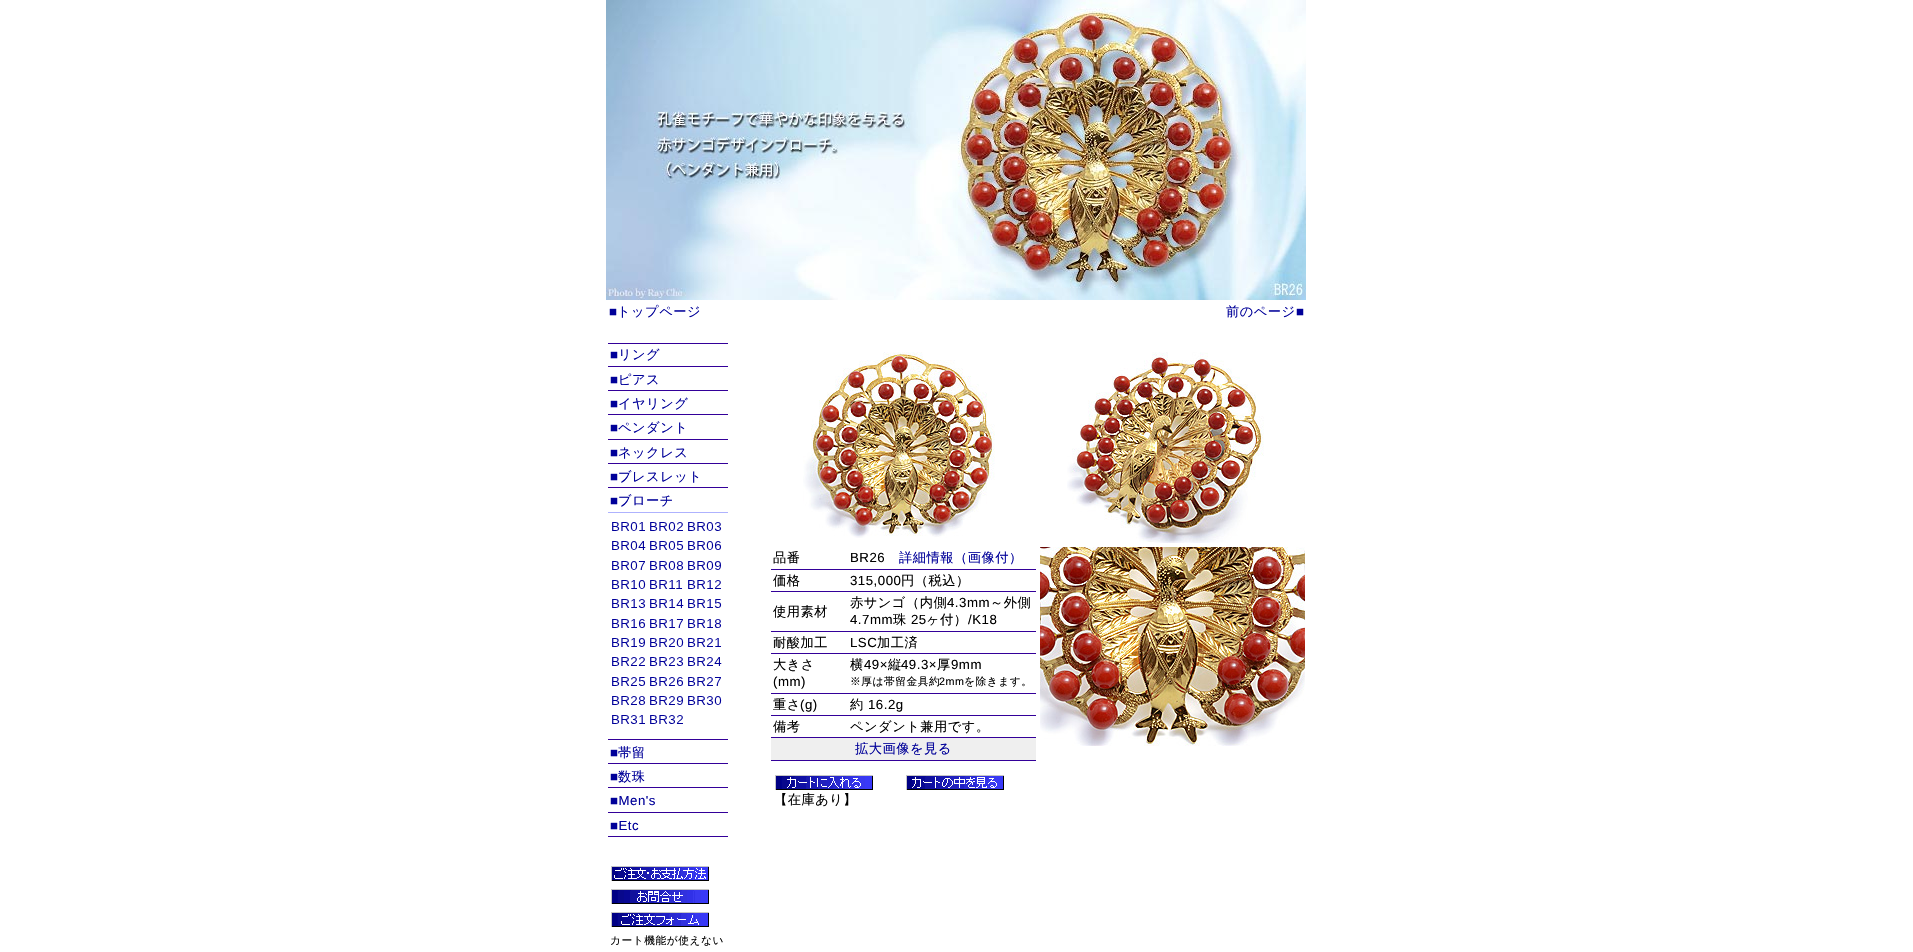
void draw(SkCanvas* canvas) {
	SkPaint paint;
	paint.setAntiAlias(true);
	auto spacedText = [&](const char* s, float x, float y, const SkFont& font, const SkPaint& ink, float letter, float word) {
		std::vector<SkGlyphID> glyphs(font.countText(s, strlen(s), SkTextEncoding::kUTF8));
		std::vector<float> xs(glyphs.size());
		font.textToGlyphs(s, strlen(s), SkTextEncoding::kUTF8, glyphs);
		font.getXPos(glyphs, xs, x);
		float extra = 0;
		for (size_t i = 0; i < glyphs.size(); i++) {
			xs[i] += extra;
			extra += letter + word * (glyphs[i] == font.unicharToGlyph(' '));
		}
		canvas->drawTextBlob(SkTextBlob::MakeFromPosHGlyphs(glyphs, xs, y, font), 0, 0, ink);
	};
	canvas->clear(0xffffffff);
	canvas->drawImageRect(SkImages::DeferredFromEncodedData(SkData::MakeFromFileName("img1.png")), SkRect::MakeXYWH(606, 0, 700, 300), SkSamplingOptions());
	SkFont f1(fontMgr->matchFamilyStyle("Liberation Sans", SkFontStyle::Normal()), 13.25);
	f1.setSubpixel(true);
	paint.setColor(0xff000099);
	spacedText("■", 609, 316, f1, paint, 0.5, 0);
	SkFont f2(fontMgr->matchFamilyStyle("WenQuanYi Zen Hei", SkFontStyle(500, SkFontStyle::kNormal_Width, SkFontStyle::kUpright_Slant)), 13.25);
	f2.setSubpixel(true);
	spacedText("トップページ", 617, 316, f2, paint, 0.5, 0);
	spacedText("前のページ", 1226, 316, f2, paint, 0.5, 0);
	spacedText("■", 1296, 316, f1, paint, 0.5, 0);
	paint.setColor(0xff330099);
	canvas->drawRect(SkRect::MakeXYWH(608, 343, 120, 1), paint);
	canvas->drawRect(SkRect::MakeXYWH(608, 366, 120, 1), paint);
	paint.setColor(0xff000099);
	spacedText("■", 610, 359, f1, paint, 0.5, 0);
	spacedText("リング", 618, 359, f2, paint, 0.5, 0);
	paint.setColor(0xff330099);
	canvas->drawRect(SkRect::MakeXYWH(608, 390, 120, 1), paint);
	paint.setColor(0xff000099);
	spacedText("■", 610, 384, f1, paint, 0.5, 0);
	spacedText("ピアス", 618, 384, f2, paint, 0.5, 0);
	paint.setColor(0xff330099);
	canvas->drawRect(SkRect::MakeXYWH(608, 414, 120, 1), paint);
	paint.setColor(0xff000099);
	spacedText("■", 610, 408, f1, paint, 0.5, 0);
	spacedText("イヤリング", 618, 408, f2, paint, 0.5, 0);
	paint.setColor(0xff330099);
	canvas->drawRect(SkRect::MakeXYWH(608, 439, 120, 1), paint);
	paint.setColor(0xff000099);
	spacedText("■", 610, 432, f1, paint, 0.5, 0);
	spacedText("ペンダント", 618, 432, f2, paint, 0.5, 0);
	paint.setColor(0xff330099);
	canvas->drawRect(SkRect::MakeXYWH(608, 463, 120, 1), paint);
	paint.setColor(0xff000099);
	spacedText("■", 610, 457, f1, paint, 0.5, 0);
	spacedText("ネックレス", 618, 457, f2, paint, 0.5, 0);
	paint.setColor(0xff330099);
	canvas->drawRect(SkRect::MakeXYWH(608, 487, 120, 1), paint);
	paint.setColor(0xff000099);
	spacedText("■", 610, 481, f1, paint, 0.5, 0);
	spacedText("ブレスレット", 618, 481, f2, paint, 0.5, 0);
	paint.setColor(0xffaeb2fe);
	canvas->drawRect(SkRect::MakeXYWH(608, 512, 120, 1), paint);
	paint.setColor(0xff000099);
	spacedText("■", 610, 505, f1, paint, 0.5, 0);
	spacedText("ブローチ", 618, 505, f2, paint, 0.5, 0);
	paint.setColor(0xff330099);
	canvas->drawRect(SkRect::MakeXYWH(608, 739, 120, 1), paint);
	canvas->drawImageRect(SkImages::DeferredFromEncodedData(SkData::MakeFromFileName("img2.png")), SkRect::MakeXYWH(612, 522, 110, 202), SkSamplingOptions());
	canvas->drawRect(SkRect::MakeXYWH(608, 763, 120, 1), paint);
	paint.setColor(0xff000099);
	spacedText("■", 610, 757, f1, paint, 0.5, 0);
	spacedText("帯留", 618, 757, f2, paint, 0.5, 0);
	paint.setColor(0xff330099);
	canvas->drawRect(SkRect::MakeXYWH(608, 787, 120, 1), paint);
	paint.setColor(0xff000099);
	spacedText("■", 610, 781, f1, paint, 0.5, 0);
	spacedText("数珠", 618, 781, f2, paint, 0.5, 0);
	paint.setColor(0xff330099);
	canvas->drawRect(SkRect::MakeXYWH(608, 812, 120, 1), paint);
	paint.setColor(0xff000099);
	spacedText("■Men's", 610, 805, f1, paint, 0.5, 0);
	paint.setColor(0xff330099);
	canvas->drawRect(SkRect::MakeXYWH(608, 836, 120, 1), paint);
	paint.setColor(0xff000099);
	spacedText("■Etc", 610, 830, f1, paint, 0.5, 0);
	canvas->drawImageRect(SkImages::DeferredFromEncodedData(SkData::MakeFromFileName("img3.png")), SkRect::MakeXYWH(611, 866, 98, 15), SkSamplingOptions());
	canvas->drawImageRect(SkImages::DeferredFromEncodedData(SkData::MakeFromFileName("img4.png")), SkRect::MakeXYWH(611, 889, 98, 15), SkSamplingOptions());
	canvas->drawImageRect(SkImages::DeferredFromEncodedData(SkData::MakeFromFileName("img5.png")), SkRect::MakeXYWH(611, 912, 98, 15), SkSamplingOptions());
	SkFont f3(fontMgr->matchFamilyStyle("WenQuanYi Zen Hei", SkFontStyle(500, SkFontStyle::kNormal_Width, SkFontStyle::kUpright_Slant)), 10.75);
	f3.setSubpixel(true);
	paint.setColor(0xff000000);
	spacedText("カート機能が使えない", 610, 944, f3, paint, 0.5, 0);
	canvas->drawImageRect(SkImages::DeferredFromEncodedData(SkData::MakeFromFileName("img6.png")), SkRect::MakeXYWH(803, 352, 192, 186), SkSamplingOptions());
	canvas->drawImageRect(SkImages::DeferredFromEncodedData(SkData::MakeFromFileName("img7.png")), SkRect::MakeXYWH(1067, 352, 197, 191), SkSamplingOptions());
	paint.setColor(0xff330099);
	canvas->drawRect(SkRect::MakeXYWH(771, 569, 265, 1), paint);
	paint.setColor(0xff000000);
	spacedText("品番", 773, 562, f2, paint, 0.5, 0);
	spacedText("BR26", 850, 562, f1, paint, 0.5, 0);
	paint.setColor(0xff000099);
	spacedText("詳細情報（画像付）", 899, 562, f2, paint, 0.5, 0);
	paint.setColor(0xff330099);
	canvas->drawRect(SkRect::MakeXYWH(771, 591, 265, 1), paint);
	paint.setColor(0xff000000);
	spacedText("価格", 773, 585, f2, paint, 0.5, 0);
	spacedText("315,000", 850, 585, f1, paint, 0.5, 0);
	spacedText("円（税込）", 901, 585, f2, paint, 0.5, 0);
	paint.setColor(0xff330099);
	canvas->drawRect(SkRect::MakeXYWH(771, 631, 265, 1), paint);
	paint.setColor(0xff000000);
	spacedText("使用素材", 773, 616, f2, paint, 0.5, 0);
	spacedText("赤サンゴ（内側", 850, 607, f2, paint, 0.5, 0);
	spacedText("4.3mm", 947, 607, f1, paint, 0.5, 0);
	spacedText("～外側", 990, 607, f2, paint, 0.5, 0);
	spacedText("4.7mm", 850, 624, f1, paint, 0.5, 0);
	spacedText("珠", 893, 624, f2, paint, 0.5, 0);
	spacedText("25", 911, 624, f1, paint, 0.5, 0);
	spacedText("ヶ付）", 926, 624, f2, paint, 0.5, 0);
	spacedText("/K18", 968, 624, f1, paint, 0.5, 0);
	paint.setColor(0xff330099);
	canvas->drawRect(SkRect::MakeXYWH(771, 653, 265, 1), paint);
	paint.setColor(0xff000000);
	spacedText("耐酸加工", 773, 647, f2, paint, 0.5, 0);
	spacedText("LSC", 850, 647, f1, paint, 0.5, 0);
	spacedText("加工済", 877, 647, f2, paint, 0.5, 0);
	paint.setColor(0xff330099);
	canvas->drawRect(SkRect::MakeXYWH(771, 693, 265, 1), paint);
	paint.setColor(0xff000000);
	spacedText("大きさ", 773, 669, f2, paint, 0.5, 0);
	spacedText("(mm)", 773, 686, f1, paint, 0.5, 0);
	spacedText("横", 850, 669, f2, paint, 0.5, 0);
	spacedText("49×", 864, 669, f1, paint, 0.5, 0);
	spacedText("縦", 888, 669, f2, paint, 0.5, 0);
	spacedText("49.3×", 901, 669, f1, paint, 0.5, 0);
	spacedText("厚", 937, 669, f2, paint, 0.5, 0);
	spacedText("9mm", 951, 669, f1, paint, 0.5, 0);
	spacedText("※厚は帯留金具約", 850, 685, f3, paint, 0.5, 0);
	SkFont f4(fontMgr->matchFamilyStyle("Liberation Sans", SkFontStyle::Normal()), 10.75);
	f4.setSubpixel(true);
	spacedText("2mm", 939, 685, f4, paint, 0.5, 0);
	spacedText("を除きます。", 964, 685, f3, paint, 0.5, 0);
	paint.setColor(0xff330099);
	canvas->drawRect(SkRect::MakeXYWH(771, 715, 265, 1), paint);
	paint.setColor(0xff000000);
	spacedText("重さ", 773, 709, f2, paint, 0.5, 0);
	spacedText("(g)", 800, 709, f1, paint, 0.5, 0);
	spacedText("約", 850, 709, f2, paint, 0.5, 0);
	spacedText("16.2g", 868, 709, f1, paint, 0.5, 0);
	paint.setColor(0xff330099);
	canvas->drawRect(SkRect::MakeXYWH(771, 737, 265, 1), paint);
	paint.setColor(0xff000000);
	spacedText("備考", 773, 731, f2, paint, 0.5, 0);
	spacedText("ペンダント兼用です。", 850, 731, f2, paint, 0.5, 0);
	paint.setColor(0xffefefef);
	canvas->drawRect(SkRect::MakeXYWH(771, 738, 265, 22), paint);
	paint.setColor(0xff330099);
	canvas->drawRect(SkRect::MakeXYWH(771, 760, 265, 1), paint);
	paint.setColor(0xff000099);
	spacedText("拡大画像を見る", 855, 753, f2, paint, 0.5, 0);
	canvas->drawImageRect(SkImages::DeferredFromEncodedData(SkData::MakeFromFileName("img8.png")), SkRect::MakeXYWH(906, 775, 98, 15), SkSamplingOptions());
	canvas->drawImageRect(SkImages::DeferredFromEncodedData(SkData::MakeFromFileName("img9.png")), SkRect::MakeXYWH(775, 775, 98, 15), SkSamplingOptions());
	paint.setColor(0xff000000);
	spacedText("【在庫あり】", 774, 804, f2, paint, 0.5, 0);
	canvas->drawImageRect(SkImages::DeferredFromEncodedData(SkData::MakeFromFileName("img10.png")), SkRect::MakeXYWH(1040, 547, 265, 199), SkSamplingOptions());
}
